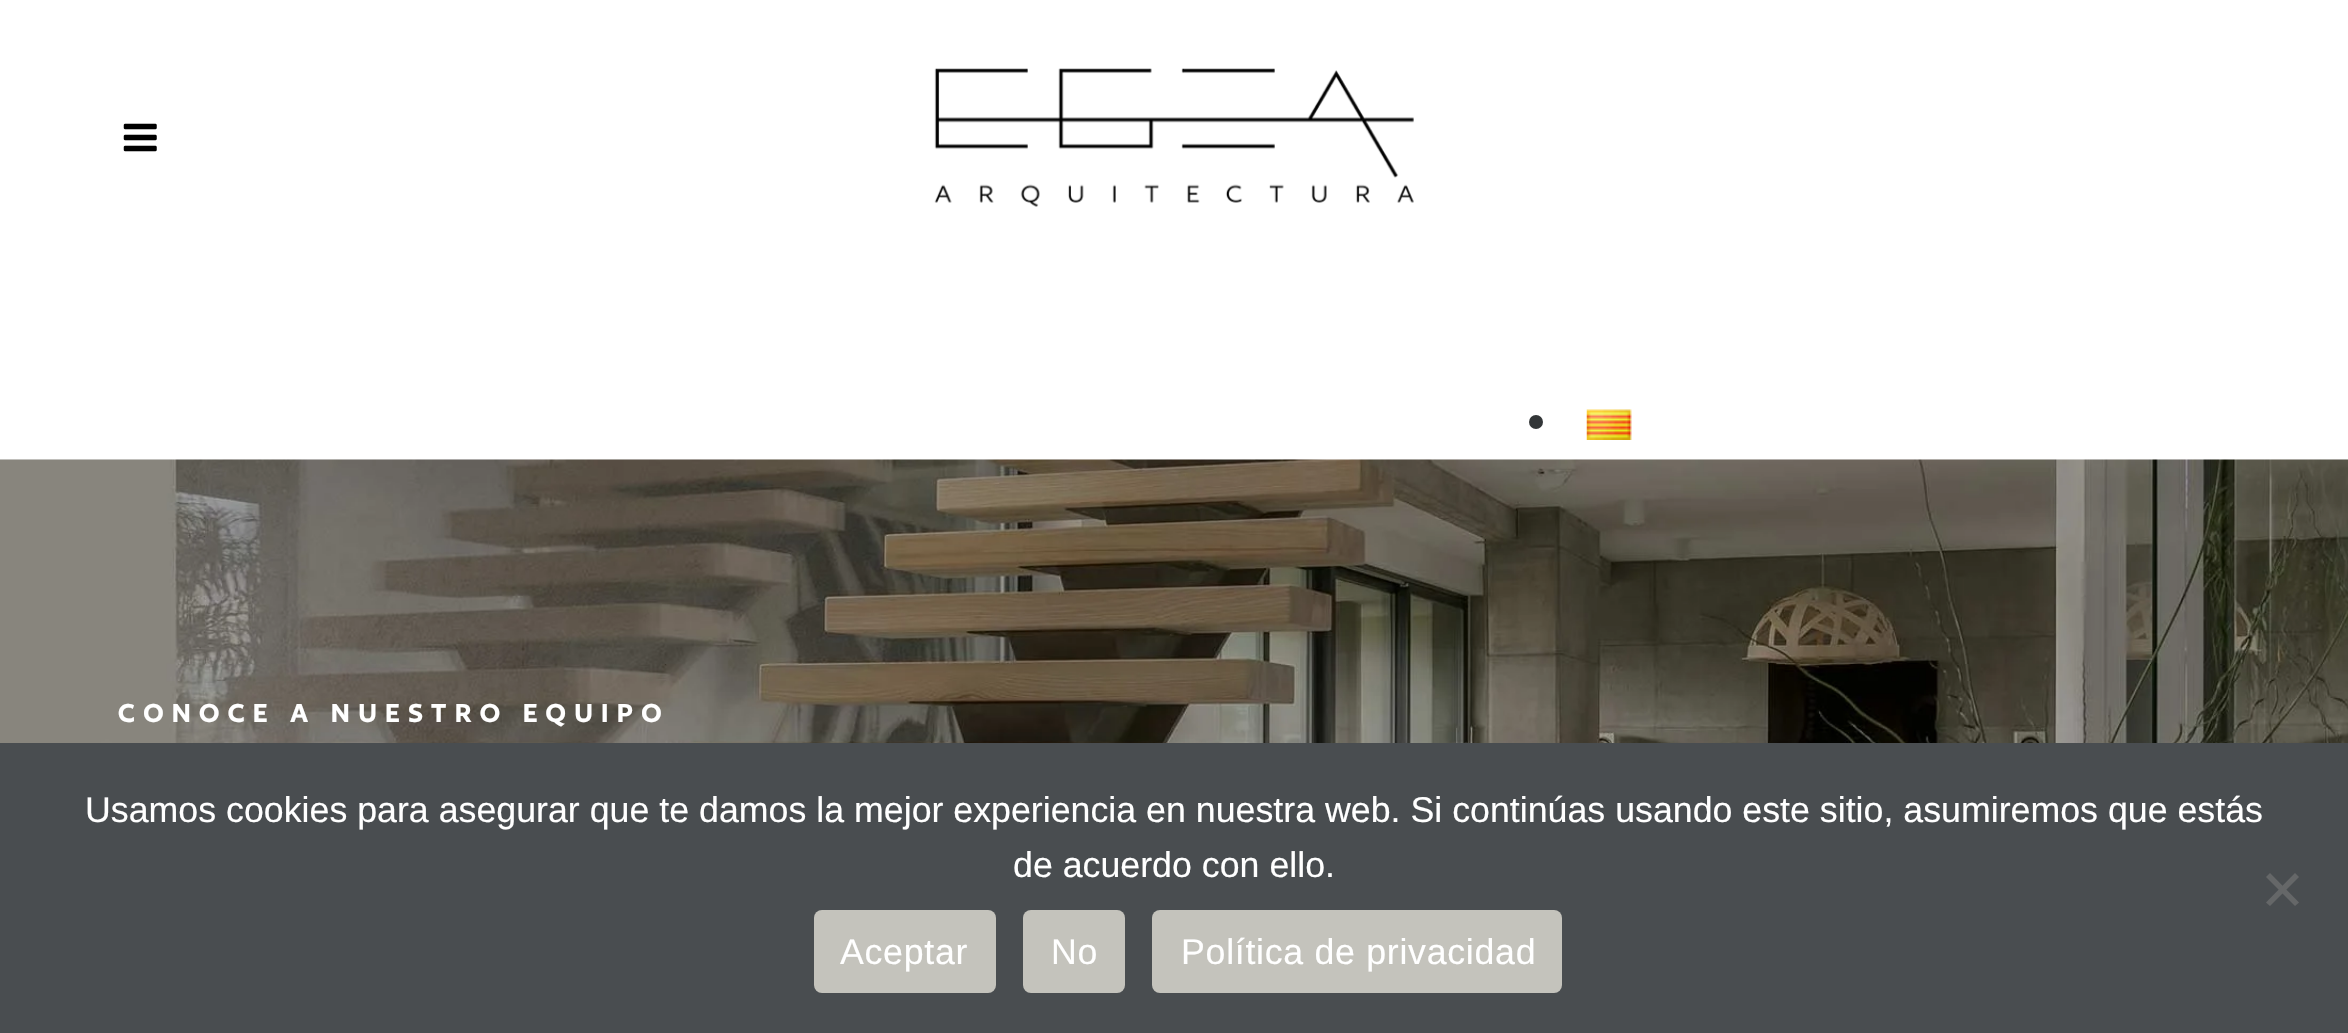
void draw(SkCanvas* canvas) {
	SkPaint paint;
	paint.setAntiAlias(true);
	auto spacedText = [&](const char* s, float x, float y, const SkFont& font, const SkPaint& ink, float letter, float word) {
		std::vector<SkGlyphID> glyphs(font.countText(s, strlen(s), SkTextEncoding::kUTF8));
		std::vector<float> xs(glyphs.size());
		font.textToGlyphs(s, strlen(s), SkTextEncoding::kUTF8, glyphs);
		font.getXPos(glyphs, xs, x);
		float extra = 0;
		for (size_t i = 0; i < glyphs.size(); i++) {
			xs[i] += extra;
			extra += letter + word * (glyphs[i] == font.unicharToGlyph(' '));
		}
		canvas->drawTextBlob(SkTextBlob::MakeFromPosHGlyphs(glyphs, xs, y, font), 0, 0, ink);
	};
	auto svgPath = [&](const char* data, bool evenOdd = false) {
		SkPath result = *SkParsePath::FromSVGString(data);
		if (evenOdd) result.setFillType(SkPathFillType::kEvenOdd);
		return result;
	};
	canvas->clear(0xffffffff);
	canvas->drawImageRect(SkImages::DeferredFromEncodedData(SkData::MakeFromFileName("img4.png")), SkRect::MakeXYWH(0, 459, 2348, 284), SkSamplingOptions());
	paint.setColor(0x4dffffff);
	canvas->drawRect(SkRect::MakeXYWH(0, 459, 2348, 1), paint);
	canvas->drawImageRect(SkImages::DeferredFromEncodedData(SkData::MakeFromFileName("img1.png")), SkRect::MakeXYWH(123, 123, 34, 29), SkSamplingOptions());
	canvas->drawImageRect(SkImages::DeferredFromEncodedData(SkData::MakeFromFileName("img2.png")), SkRect::MakeXYWH(934, 68, 480, 139), SkSamplingOptions());
	paint.setColor(0xff333638);
	canvas->drawCircle(1536, 422, 7, paint);
	canvas->drawImageRect(SkImages::DeferredFromEncodedData(SkData::MakeFromFileName("img3.png")), SkRect::MakeXYWH(1586, 409, 46, 31), SkSamplingOptions());
	SkFont f1(fontMgr->matchFamilyStyle("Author", SkFontStyle(600, SkFontStyle::kNormal_Width, SkFontStyle::kUpright_Slant)), 30.25);
	f1.setSubpixel(true);
	paint.setColor(0xffffffff);
	spacedText("CONOCE A NUESTRO EQUIPO", 118, 722, f1, paint, 8.25, 0);
	paint.setColor(0xff494d50);
	canvas->drawRect(SkRect::MakeXYWH(0, 743, 2348, 290), paint);
	SkFont f2(fontMgr->matchFamilyStyle("Liberation Sans", SkFontStyle::Normal()), 35.75);
	f2.setSubpixel(true);
	paint.setColor(0xffffffff);
	canvas->drawString("Usamos cookies para asegurar que te damos la mejor experiencia en nuestra web. Si continúas usando este sitio, asumiremos que estás", 85, 822, f2, paint);
	canvas->drawString("de acuerdo con ello.", 1013, 877, f2, paint);
	paint.setColor(0xff656768);
	canvas->drawPath(svgPath("M2295 873L2299 877L2270 906L2266 902.5Z"), paint);
	canvas->drawPath(svgPath("M2266 877L2270 873L2299 902.5L2295 906Z"), paint);
	paint.setColor(0xffc4c3bc);
	canvas->drawRoundRect(SkRect::MakeXYWH(814, 910, 182, 83), 8, 8, paint);
	paint.setColor(0xffffffff);
	spacedText("Aceptar", 840, 964, f2, paint, 0.7, 0);
	paint.setColor(0xffc4c3bc);
	canvas->drawRoundRect(SkRect::MakeXYWH(1023, 910, 102, 83), 8, 8, paint);
	paint.setColor(0xffffffff);
	spacedText("No", 1051, 964, f2, paint, 0.7, 0);
	paint.setColor(0xffc4c3bc);
	canvas->drawRoundRect(SkRect::MakeXYWH(1152, 910, 410, 83), 8, 8, paint);
	paint.setColor(0xffffffff);
	spacedText("Política de privacidad", 1181, 964, f2, paint, 0.7, 0);
}
